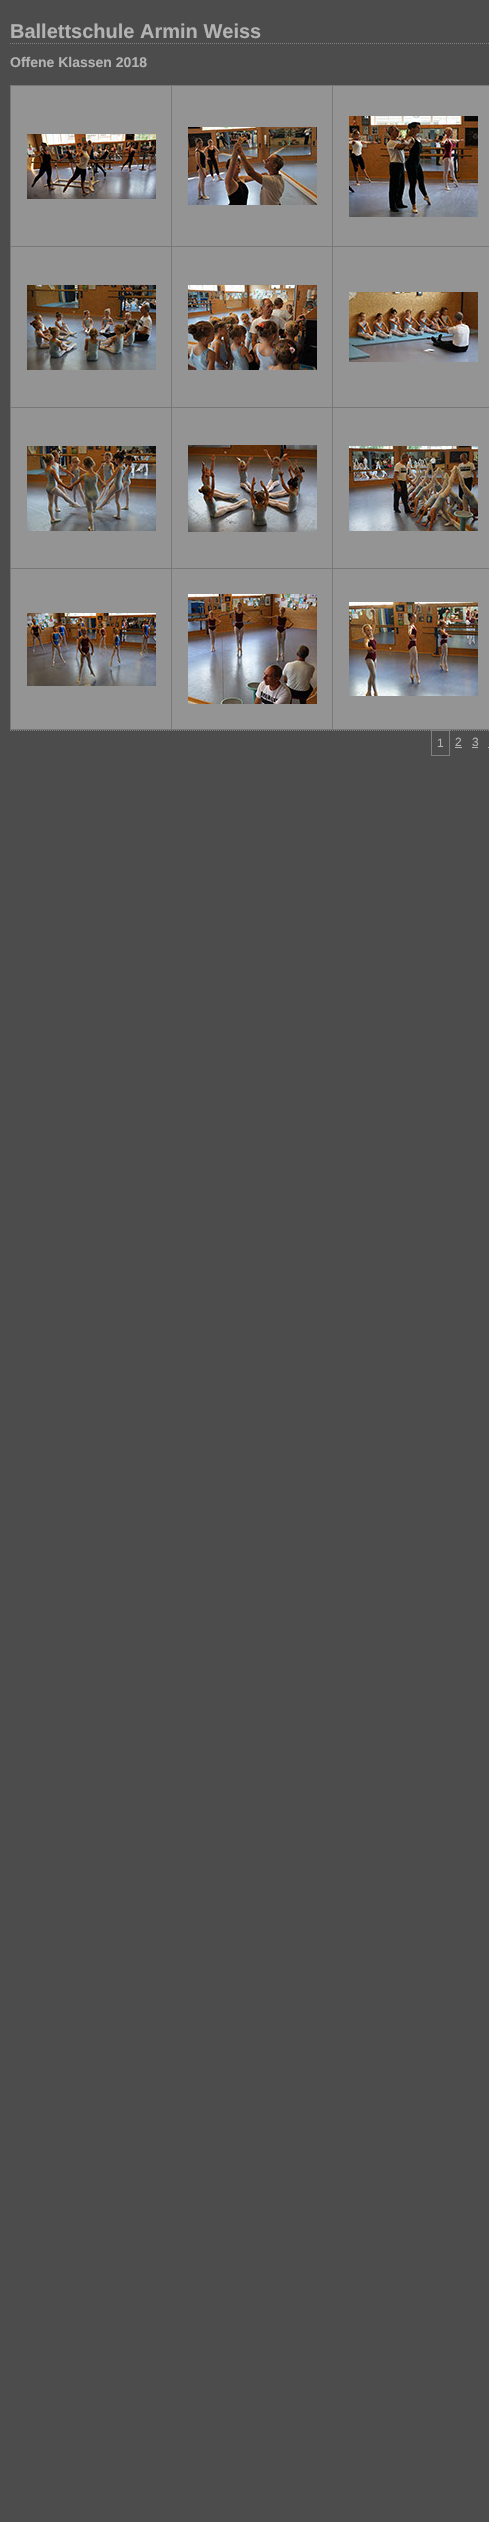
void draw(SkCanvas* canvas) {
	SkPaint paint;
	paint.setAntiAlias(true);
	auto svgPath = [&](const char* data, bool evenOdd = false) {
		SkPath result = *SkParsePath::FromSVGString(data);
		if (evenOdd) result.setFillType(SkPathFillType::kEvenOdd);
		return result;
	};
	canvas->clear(0xff4c4c4c);
	paint.setStroke(true);
	paint.setStrokeWidth(1);
	paint.setColor(0xff7f7f7f);
	paint.setPathEffect(SkDashPathEffect::Make({{1, 1}}, 0));
	canvas->drawPath(svgPath("M10 43.5H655"), paint);
	paint.setPathEffect(nullptr);
	SkFont f1(fontMgr->matchFamilyStyle("Liberation Sans", SkFontStyle::Bold()), 20);
	f1.setSubpixel(true);
	paint.setStroke(false);
	paint.setColor(0xffb3b3b3);
	canvas->drawString("Ballettschule Armin Weiss", 10, 38, f1, paint);
	SkFont f2(fontMgr->matchFamilyStyle("Liberation Sans", SkFontStyle::Bold()), 14);
	f2.setSubpixel(true);
	canvas->drawString("Offene Klassen 2018", 10, 67, f2, paint);
	paint.setColor(0xff949494);
	canvas->drawRect(SkRect::MakeXYWH(11, 86, 160, 160), paint);
	paint.setColor(0xff787878);
	canvas->drawRect(SkRect::MakeXYWH(10, 85, 479, 1), paint);
	canvas->drawRect(SkRect::MakeXYWH(10, 85, 1, 161), paint);
	canvas->drawImageRect(SkImages::DeferredFromEncodedData(SkData::MakeFromFileName("img1.png")), SkRect::MakeXYWH(27, 134, 129, 65), SkSamplingOptions());
	paint.setColor(0xff949494);
	canvas->drawRect(SkRect::MakeXYWH(172, 86, 160, 160), paint);
	paint.setColor(0xff787878);
	canvas->drawRect(SkRect::MakeXYWH(171, 85, 1, 161), paint);
	canvas->drawImageRect(SkImages::DeferredFromEncodedData(SkData::MakeFromFileName("img2.png")), SkRect::MakeXYWH(188, 127, 129, 78), SkSamplingOptions());
	paint.setColor(0xff949494);
	canvas->drawRect(SkRect::MakeXYWH(333, 86, 156, 160), paint);
	paint.setColor(0xff787878);
	canvas->drawRect(SkRect::MakeXYWH(332, 85, 1, 161), paint);
	canvas->drawImageRect(SkImages::DeferredFromEncodedData(SkData::MakeFromFileName("img3.png")), SkRect::MakeXYWH(349, 116, 129, 101), SkSamplingOptions());
	paint.setColor(0xff949494);
	canvas->drawRect(SkRect::MakeXYWH(11, 247, 160, 160), paint);
	paint.setColor(0xff787878);
	canvas->drawRect(SkRect::MakeXYWH(10, 246, 479, 1), paint);
	canvas->drawRect(SkRect::MakeXYWH(10, 246, 1, 161), paint);
	canvas->drawImageRect(SkImages::DeferredFromEncodedData(SkData::MakeFromFileName("img4.png")), SkRect::MakeXYWH(27, 285, 129, 85), SkSamplingOptions());
	paint.setColor(0xff949494);
	canvas->drawRect(SkRect::MakeXYWH(172, 247, 160, 160), paint);
	paint.setColor(0xff787878);
	canvas->drawRect(SkRect::MakeXYWH(171, 246, 1, 161), paint);
	canvas->drawImageRect(SkImages::DeferredFromEncodedData(SkData::MakeFromFileName("img5.png")), SkRect::MakeXYWH(188, 285, 129, 85), SkSamplingOptions());
	paint.setColor(0xff949494);
	canvas->drawRect(SkRect::MakeXYWH(333, 247, 156, 160), paint);
	paint.setColor(0xff787878);
	canvas->drawRect(SkRect::MakeXYWH(332, 246, 1, 161), paint);
	canvas->drawImageRect(SkImages::DeferredFromEncodedData(SkData::MakeFromFileName("img6.png")), SkRect::MakeXYWH(349, 292, 129, 70), SkSamplingOptions());
	paint.setColor(0xff949494);
	canvas->drawRect(SkRect::MakeXYWH(11, 408, 160, 160), paint);
	paint.setColor(0xff787878);
	canvas->drawRect(SkRect::MakeXYWH(10, 407, 479, 1), paint);
	canvas->drawRect(SkRect::MakeXYWH(10, 407, 1, 161), paint);
	canvas->drawImageRect(SkImages::DeferredFromEncodedData(SkData::MakeFromFileName("img7.png")), SkRect::MakeXYWH(27, 446, 129, 85), SkSamplingOptions());
	paint.setColor(0xff949494);
	canvas->drawRect(SkRect::MakeXYWH(172, 408, 160, 160), paint);
	paint.setColor(0xff787878);
	canvas->drawRect(SkRect::MakeXYWH(171, 407, 1, 161), paint);
	canvas->drawImageRect(SkImages::DeferredFromEncodedData(SkData::MakeFromFileName("img8.png")), SkRect::MakeXYWH(188, 445, 129, 87), SkSamplingOptions());
	paint.setColor(0xff949494);
	canvas->drawRect(SkRect::MakeXYWH(333, 408, 156, 160), paint);
	paint.setColor(0xff787878);
	canvas->drawRect(SkRect::MakeXYWH(332, 407, 1, 161), paint);
	canvas->drawImageRect(SkImages::DeferredFromEncodedData(SkData::MakeFromFileName("img9.png")), SkRect::MakeXYWH(349, 446, 129, 85), SkSamplingOptions());
	paint.setColor(0xff949494);
	canvas->drawRect(SkRect::MakeXYWH(11, 569, 160, 160), paint);
	paint.setColor(0xff787878);
	canvas->drawRect(SkRect::MakeXYWH(10, 568, 479, 1), paint);
	canvas->drawRect(SkRect::MakeXYWH(10, 729, 479, 1), paint);
	canvas->drawRect(SkRect::MakeXYWH(10, 568, 1, 162), paint);
	canvas->drawImageRect(SkImages::DeferredFromEncodedData(SkData::MakeFromFileName("img10.png")), SkRect::MakeXYWH(27, 613, 129, 73), SkSamplingOptions());
	paint.setColor(0xff949494);
	canvas->drawRect(SkRect::MakeXYWH(172, 569, 160, 160), paint);
	paint.setColor(0xff787878);
	canvas->drawRect(SkRect::MakeXYWH(171, 568, 1, 162), paint);
	canvas->drawImageRect(SkImages::DeferredFromEncodedData(SkData::MakeFromFileName("img11.png")), SkRect::MakeXYWH(188, 594, 129, 110), SkSamplingOptions());
	paint.setColor(0xff949494);
	canvas->drawRect(SkRect::MakeXYWH(333, 569, 156, 160), paint);
	paint.setColor(0xff787878);
	canvas->drawRect(SkRect::MakeXYWH(332, 568, 1, 162), paint);
	canvas->drawImageRect(SkImages::DeferredFromEncodedData(SkData::MakeFromFileName("img12.png")), SkRect::MakeXYWH(349, 602, 129, 94), SkSamplingOptions());
	paint.setStroke(true);
	paint.setColor(0xff7f7f7f);
	paint.setPathEffect(SkDashPathEffect::Make({{1, 1}}, 0));
	canvas->drawPath(svgPath("M10 730.5H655"), paint);
	paint.setPathEffect(nullptr);
	canvas->drawRect(SkRect::MakeXYWH(431.5, 730.5, 18, 25), paint);
	SkFont f3(fontMgr->matchFamilyStyle("Liberation Sans", SkFontStyle::Normal()), 12);
	f3.setSubpixel(true);
	paint.setStroke(false);
	paint.setColor(0xffb3b3b3);
	canvas->drawString("1", 437, 747, f3, paint);
	canvas->drawString("2", 455, 746, f3, paint);
	canvas->drawRect(SkRect::MakeXYWH(455, 747, 7, 1), paint);
	canvas->drawString("3", 472, 746, f3, paint);
	canvas->drawRect(SkRect::MakeXYWH(472, 747, 6, 1), paint);
	canvas->drawRect(SkRect::MakeXYWH(488, 747, 1, 1), paint);
}
